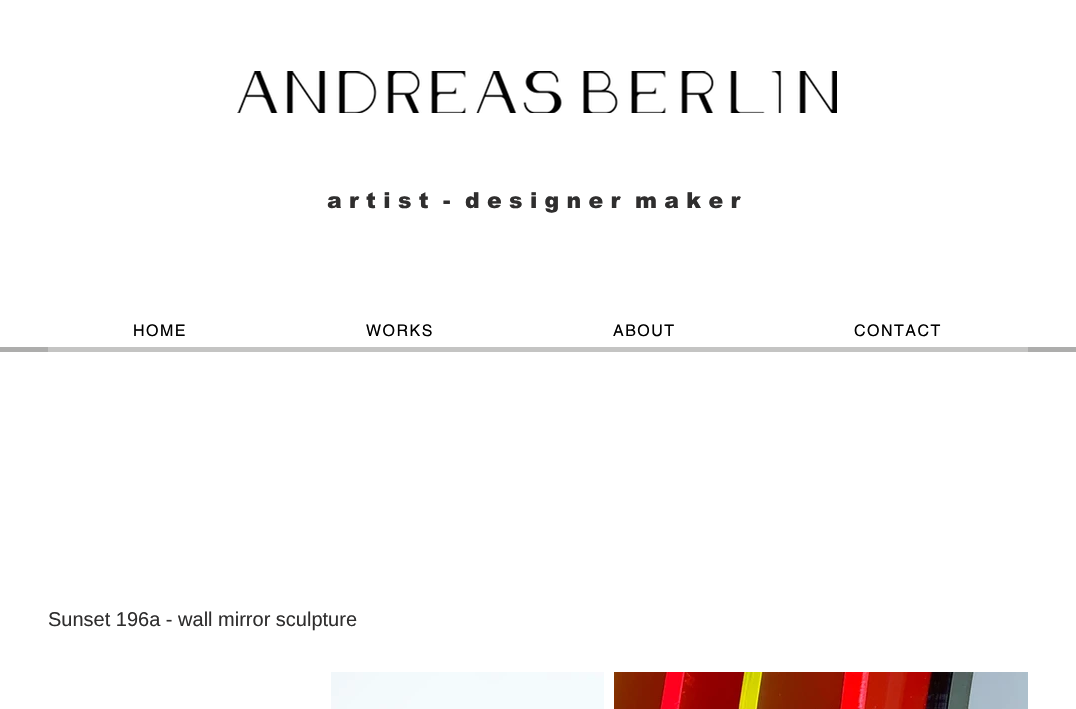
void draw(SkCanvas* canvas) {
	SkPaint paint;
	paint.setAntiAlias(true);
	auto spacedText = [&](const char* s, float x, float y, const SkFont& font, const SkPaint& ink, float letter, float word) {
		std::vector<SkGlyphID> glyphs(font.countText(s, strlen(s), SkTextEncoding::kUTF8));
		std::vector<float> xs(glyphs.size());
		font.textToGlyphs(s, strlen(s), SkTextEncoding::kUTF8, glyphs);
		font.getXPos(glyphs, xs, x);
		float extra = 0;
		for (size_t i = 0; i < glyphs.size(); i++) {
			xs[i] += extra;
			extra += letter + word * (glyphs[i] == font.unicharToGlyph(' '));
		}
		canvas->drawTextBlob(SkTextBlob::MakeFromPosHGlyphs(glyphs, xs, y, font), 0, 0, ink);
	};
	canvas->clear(0xffffffff);
	canvas->drawImageRect(SkImages::DeferredFromEncodedData(SkData::MakeFromFileName("img1.png")), SkRect::MakeXYWH(237, 71, 600, 42), SkSamplingOptions());
	SkFont f1(fontMgr->matchFamilyStyle("arial", SkFontStyle(900, SkFontStyle::kNormal_Width, SkFontStyle::kUpright_Slant)), 22);
	f1.setSubpixel(true);
	paint.setColor(0xff2f2e2e);
	canvas->drawString("a r t i s t  -  d e s i g n e r  m a k e r", 327, 208, f1, paint);
	SkFont f2(fontMgr->matchFamilyStyle("helvetica", SkFontStyle::Normal()), 16);
	f2.setSubpixel(true);
	paint.setColor(0xff000000);
	spacedText("HOME", 133, 336, f2, paint, 1.5, 0);
	spacedText("WORKS", 366, 336, f2, paint, 1.5, 0);
	spacedText("ABOUT", 613, 336, f2, paint, 1.5, 0);
	spacedText("CONTACT", 854, 336, f2, paint, 1.5, 0);
	paint.setColor(0xffadadac);
	canvas->drawRect(SkRect::MakeXYWH(0, 347, 1076, 5), paint);
	paint.setColor(0xffc4c4c3);
	canvas->drawRect(SkRect::MakeXYWH(48, 347, 980, 5), paint);
	SkFont f3(fontMgr->matchFamilyStyle("Liberation Sans", SkFontStyle::Normal()), 20);
	f3.setSubpixel(true);
	paint.setColor(0xff2f2e2e);
	canvas->drawString("Sunset 196a - wall mirror sculpture", 48, 626, f3, paint);
	canvas->drawImageRect(SkImages::DeferredFromEncodedData(SkData::MakeFromFileName("img2.png")), SkRect::MakeXYWH(331, 672, 273, 37), SkSamplingOptions());
	canvas->drawImageRect(SkImages::DeferredFromEncodedData(SkData::MakeFromFileName("img3.png")), SkRect::MakeXYWH(614, 672, 414, 37), SkSamplingOptions());
}
